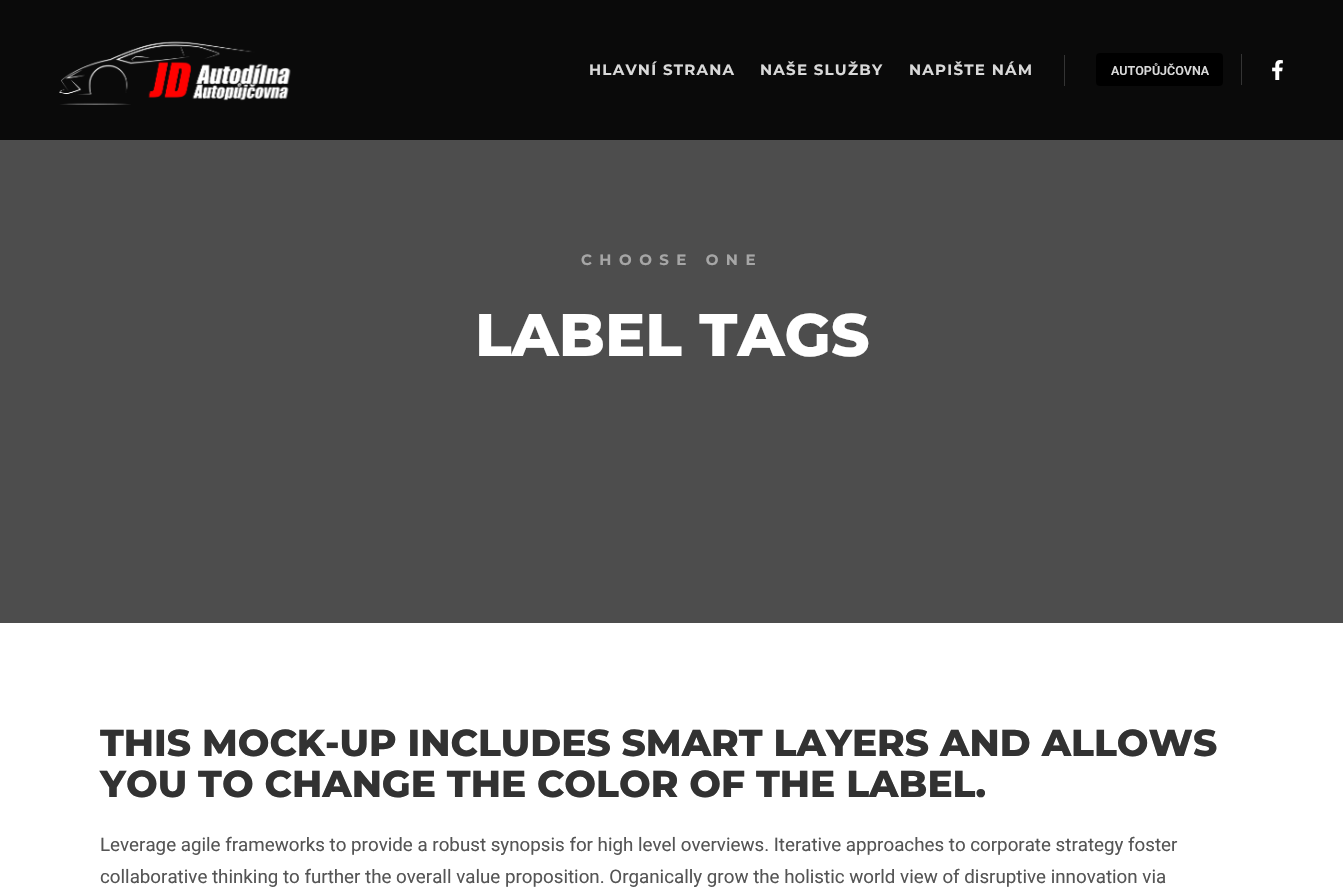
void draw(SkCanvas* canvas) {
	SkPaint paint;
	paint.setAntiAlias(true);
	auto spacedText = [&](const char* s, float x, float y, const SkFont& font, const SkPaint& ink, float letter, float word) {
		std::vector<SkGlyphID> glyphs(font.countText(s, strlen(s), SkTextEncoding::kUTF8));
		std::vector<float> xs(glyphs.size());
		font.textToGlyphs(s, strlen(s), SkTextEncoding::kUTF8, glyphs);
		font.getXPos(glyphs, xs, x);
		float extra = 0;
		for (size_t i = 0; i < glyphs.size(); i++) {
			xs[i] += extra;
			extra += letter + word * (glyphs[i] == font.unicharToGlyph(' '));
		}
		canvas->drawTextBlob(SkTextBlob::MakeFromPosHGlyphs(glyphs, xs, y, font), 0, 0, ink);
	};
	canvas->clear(0xffffffff);
	paint.setColor(0xff0a0a0a);
	canvas->drawRect(SkRect::MakeXYWH(0, 0, 1343, 140), paint);
	canvas->drawImageRect(SkImages::DeferredFromEncodedData(SkData::MakeFromFileName("img1.png")), SkRect::MakeXYWH(59, 41, 232, 64), SkSamplingOptions());
	SkFont f1(fontMgr->matchFamilyStyle("Montserrat", SkFontStyle::Bold()), 15);
	f1.setSubpixel(true);
	paint.setColor(0xffd9d9d9);
	spacedText("HLAVNÍ STRANA", 589, 75, f1, paint, 1.25, 0);
	spacedText("NAŠE SLUŽBY", 760, 75, f1, paint, 1.25, 0);
	spacedText("NAPIŠTE NÁM", 909, 75, f1, paint, 1.25, 0);
	paint.setColor(0xff343434);
	canvas->drawRect(SkRect::MakeXYWH(1064, 55, 1, 31), paint);
	paint.setColor(0xff000000);
	canvas->drawRoundRect(SkRect::MakeXYWH(1096, 53, 127, 33), 4, 4, paint);
	SkFont f2(fontMgr->matchFamilyStyle("Roboto", SkFontStyle(600, SkFontStyle::kNormal_Width, SkFontStyle::kUpright_Slant)), 12.5);
	f2.setSubpixel(true);
	paint.setColor(0xffd9d9d9);
	canvas->drawString("AUTOPŮJČOVNA", 1111, 75, f2, paint);
	paint.setColor(0xff343434);
	canvas->drawRect(SkRect::MakeXYWH(1241, 54, 1, 31), paint);
	canvas->drawImageRect(SkImages::DeferredFromEncodedData(SkData::MakeFromFileName("img2.png")), SkRect::MakeXYWH(1272, 60, 11, 20), SkSamplingOptions());
	paint.setColor(0xff4d4d4d);
	canvas->drawRect(SkRect::MakeXYWH(0, 140, 1343, 483), paint);
	paint.setColor(0xffa6a6a6);
	spacedText("CHOOSE ONE", 581, 265, f1, paint, 7.5, 0);
	SkFont f3(fontMgr->matchFamilyStyle("Montserrat", SkFontStyle(800, SkFontStyle::kNormal_Width, SkFontStyle::kUpright_Slant)), 60);
	f3.setSubpixel(true);
	paint.setColor(0xffffffff);
	canvas->drawString("LABEL TAGS", 475, 356, f3, paint);
	SkFont f4(fontMgr->matchFamilyStyle("Montserrat", SkFontStyle(800, SkFontStyle::kNormal_Width, SkFontStyle::kUpright_Slant)), 37.5);
	f4.setSubpixel(true);
	paint.setColor(0xff323232);
	canvas->drawString("THIS MOCK-UP INCLUDES SMART LAYERS AND ALLOWS", 100, 756, f4, paint);
	canvas->drawString("YOU TO CHANGE THE COLOR OF THE LABEL.", 100, 797, f4, paint);
	SkFont f5(fontMgr->matchFamilyStyle("Roboto", SkFontStyle::Normal()), 18.75);
	f5.setSubpixel(true);
	paint.setColor(0xff555555);
	canvas->drawString("Leverage agile frameworks to provide a robust synopsis for high level overviews. Iterative approaches to corporate strategy foster", 100, 851, f5, paint);
	canvas->drawString("collaborative thinking to further the overall value proposition. Organically grow the holistic world view of disruptive innovation via", 100, 883, f5, paint);
}
